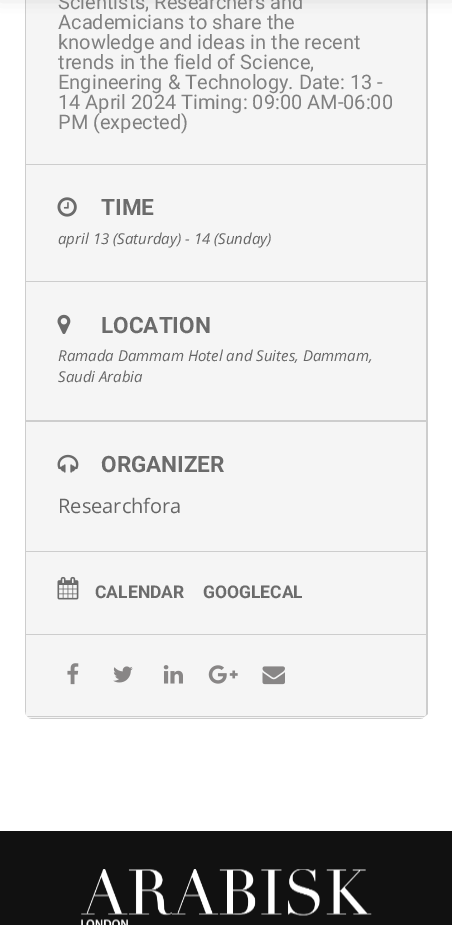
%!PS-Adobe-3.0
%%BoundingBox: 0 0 452 925
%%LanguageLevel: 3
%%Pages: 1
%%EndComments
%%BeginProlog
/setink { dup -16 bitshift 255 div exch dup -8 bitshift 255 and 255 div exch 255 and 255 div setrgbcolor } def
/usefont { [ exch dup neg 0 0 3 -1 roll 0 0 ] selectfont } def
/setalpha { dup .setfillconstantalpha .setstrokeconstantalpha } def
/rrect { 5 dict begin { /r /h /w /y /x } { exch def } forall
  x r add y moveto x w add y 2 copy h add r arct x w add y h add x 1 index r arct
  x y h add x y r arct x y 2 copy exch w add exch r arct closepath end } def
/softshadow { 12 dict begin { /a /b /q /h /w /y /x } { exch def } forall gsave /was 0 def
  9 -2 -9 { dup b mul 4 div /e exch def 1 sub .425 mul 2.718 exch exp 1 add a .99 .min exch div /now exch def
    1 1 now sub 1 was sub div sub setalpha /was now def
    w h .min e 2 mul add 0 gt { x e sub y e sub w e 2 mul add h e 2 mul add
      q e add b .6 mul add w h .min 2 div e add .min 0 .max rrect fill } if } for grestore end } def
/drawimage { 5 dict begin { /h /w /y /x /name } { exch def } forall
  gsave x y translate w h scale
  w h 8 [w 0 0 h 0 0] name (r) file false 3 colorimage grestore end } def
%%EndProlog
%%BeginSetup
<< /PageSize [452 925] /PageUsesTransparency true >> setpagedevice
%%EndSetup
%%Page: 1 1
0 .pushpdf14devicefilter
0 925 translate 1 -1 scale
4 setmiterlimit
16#FFFFFF setink
0 0 452 925 rectfill
16#CDCDCD setink
424 -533 moveto 425 -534 lineto 428 -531 lineto 428 714 lineto 424 717 lineto 421 719 lineto 424 718 426 714 426 711 curveto 426 -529 lineto 426 -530 425 -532 424 -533 curveto closepath fill
16#F5F5F5 setink
25 -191 moveto 25 711 lineto 25 715 28 719 32 719 curveto 420 719 lineto 423 719 425 716 426 713 curveto 426 -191 lineto closepath fill
16#CDCDCD setink
25 -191 moveto 25 711 lineto 26 715 lineto 26 -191 lineto closepath fill
16#000000 setink
0 -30 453 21 0 10 0.3 softshadow
16#CDCDCD setink
423 718 moveto 420 719 lineto 32 719 lineto 29 718 lineto closepath fill
26 164 400 1 rectfill
/Roboto-Regular 20 usefont
16#808080 setink
[
    [(Scientists, Researchers and) 58 9]
    [(Academicians to share the) 58 29]
    [(knowledge and ideas in the recent) 58 49]
    [(trends in the field of Science,) 58 69]
    [(Engineering & Technology. Date: 13 -) 58 89]
    [(14 April 2024 Timing: 09:00 AM-06:00) 58 109]
    [(PM \(expected\)) 58 129]
] { aload pop moveto show } forall
16#CDCDCD setink
26 420 400 2 rectfill
26 281 400 1 rectfill
(img1.raw) 57 197 20 20 drawimage
/Roboto-Bold 22.5 usefont
16#6B6B6B setink
101 215 moveto (TIME) show
/OpenSans-Italic 15 usefont
16#656565 setink
58 244 moveto (april 13 \(Saturday\) - 14 \(Sunday\)) show
(img2.raw) 57 314 14 20 drawimage
/Roboto-Bold 22.5 usefont
16#6B6B6B setink
101 333 moveto (LOCATION) show
/OpenSans-Italic 15 usefont
16#656565 setink
58 361 moveto (Ramada Dammam Hotel and Suites, Dammam,) show
58 382 moveto (Saudi Arabia) show
16#CDCDCD setink
26 551 400 1 rectfill
(img3.raw) 57 454 22 19 drawimage
/Roboto-Bold 22.5 usefont
16#6B6B6B setink
101 472 moveto (ORGANIZER) show
/OpenSans-Regular 20 usefont
16#656565 setink
58 513 moveto (Researchfora) show
16#CDCDCD setink
26 634 400 1 rectfill
(img4.raw) 57 576 22 24 drawimage
/Roboto-Bold 17.5 usefont
16#6B6B6B setink
95 598 moveto (CALENDAR) show
203 598 moveto (GOOGLECAL) show
16#F5F5F5 setink
26 635 moveto 426 635 lineto 426 713 lineto 426 715 424 717 423 718 curveto 29 718 lineto 26 715 lineto closepath fill
16#CDCDCD setink
28 717 moveto 27 716 lineto 425 716 lineto 424 717 lineto closepath fill
(img5.raw) 67 663 12 22 drawimage
(img6.raw) 113 666 20 17 drawimage
(img7.raw) 163 665 20 19 drawimage
(img8.raw) 208 665 30 19 drawimage
(img9.raw) 262 666 23 19 drawimage
16#111111 setink
0 831 452 94 rectfill
(img10.raw) 81 869 291 56 drawimage
.poppdf14devicefilter showpage
%%EOF
